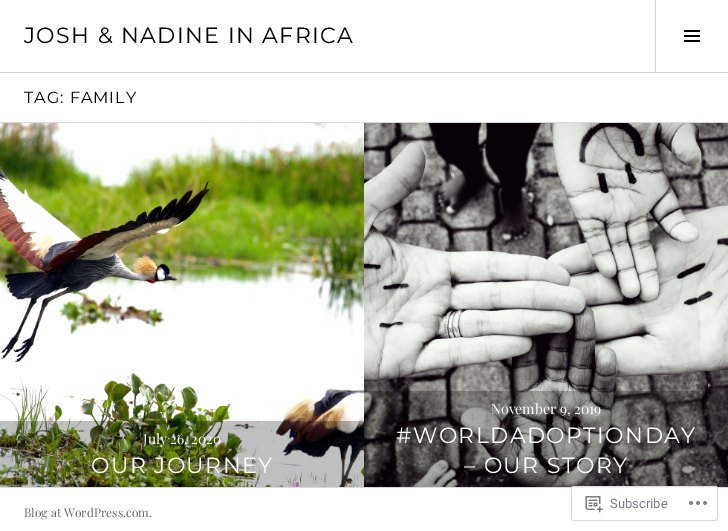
%!PS-Adobe-3.0
%%BoundingBox: 0 0 728 531
%%LanguageLevel: 3
%%Pages: 1
%%EndComments
%%BeginProlog
/setink { dup -16 bitshift 255 div exch dup -8 bitshift 255 and 255 div exch 255 and 255 div setrgbcolor } def
/usefont { [ exch dup neg 0 0 3 -1 roll 0 0 ] selectfont } def
/setalpha { dup .setfillconstantalpha .setstrokeconstantalpha } def
/rrect { 5 dict begin { /r /h /w /y /x } { exch def } forall
  x r add y moveto x w add y 2 copy h add r arct x w add y h add x 1 index r arct
  x y h add x y r arct x y 2 copy exch w add exch r arct closepath end } def
/drawimage { 5 dict begin { /h /w /y /x /name } { exch def } forall
  gsave x y translate w h scale
  w h 8 [w 0 0 h 0 0] name (r) file false 3 colorimage grestore end } def
%%EndProlog
%%BeginSetup
<< /PageSize [728 531] /PageUsesTransparency true >> setpagedevice
%%EndSetup
%%Page: 1 1
0 .pushpdf14devicefilter
0 531 translate 1 -1 scale
4 setmiterlimit
16#FFFFFF setink
0 0 728 531 rectfill
16#D9D9D9 setink
0 72 728 1 rectfill
/Montserrat-Regular 22 usefont
16#000000 setink
24 43 moveto 1.4 0 (JOSH & NADINE IN AFRICA) ashow
16#D9D9D9 setink
655 0 1 72 rectfill
(img1.raw) 684 30 16 12 drawimage
0 122 728 1 rectfill
/Montserrat-Regular 16 usefont
16#000000 setink
24 103 moveto 1 0 (TAG: FAMILY) ashow
(img2.raw) 0 123 364 364 drawimage
0.25 setalpha
0 421 364 66 rectfill
/PlayfairDisplay-Regular 14 usefont
1 setalpha
16#FFFFFF setink
143 444 moveto (July 26, 2020) show
/Montserrat-Regular 22 usefont
91 473 moveto 1.4 0 (OUR JOURNEY) ashow
(img3.raw) 364 123 364 364 drawimage
0.25 setalpha
16#000000 setink
364 391 364 96 rectfill
/PlayfairDisplay-Regular 14 usefont
1 setalpha
16#FFFFFF setink
491 414 moveto (November 9, 2019) show
/Montserrat-Regular 22 usefont
396 443 moveto 1.4 0 (#WORLDADOPTIONDAY) ashow
464 473 moveto 1.4 0 (– OUR STORY) ashow
16#D9D9D9 setink
0 487 728 1 rectfill
/PlayfairDisplay-Regular 12 usefont
16#666666 setink
24 517 moveto (Blog at WordPress.com.) show
0.98 setalpha
16#FFFFFF setink
571 486 147 35 3 rrect fill
16#DCDCDE setink
571.5 486.5 146 34 2.5 rrect stroke
1 setalpha
(img4.raw) 585 496 18 17 drawimage
/Roboto-Regular 13 usefont
16#7B7F85 setink
610 508 moveto (Subscribe) show
(img5.raw) 689 501 18 4 drawimage
.poppdf14devicefilter showpage
%%EOF
